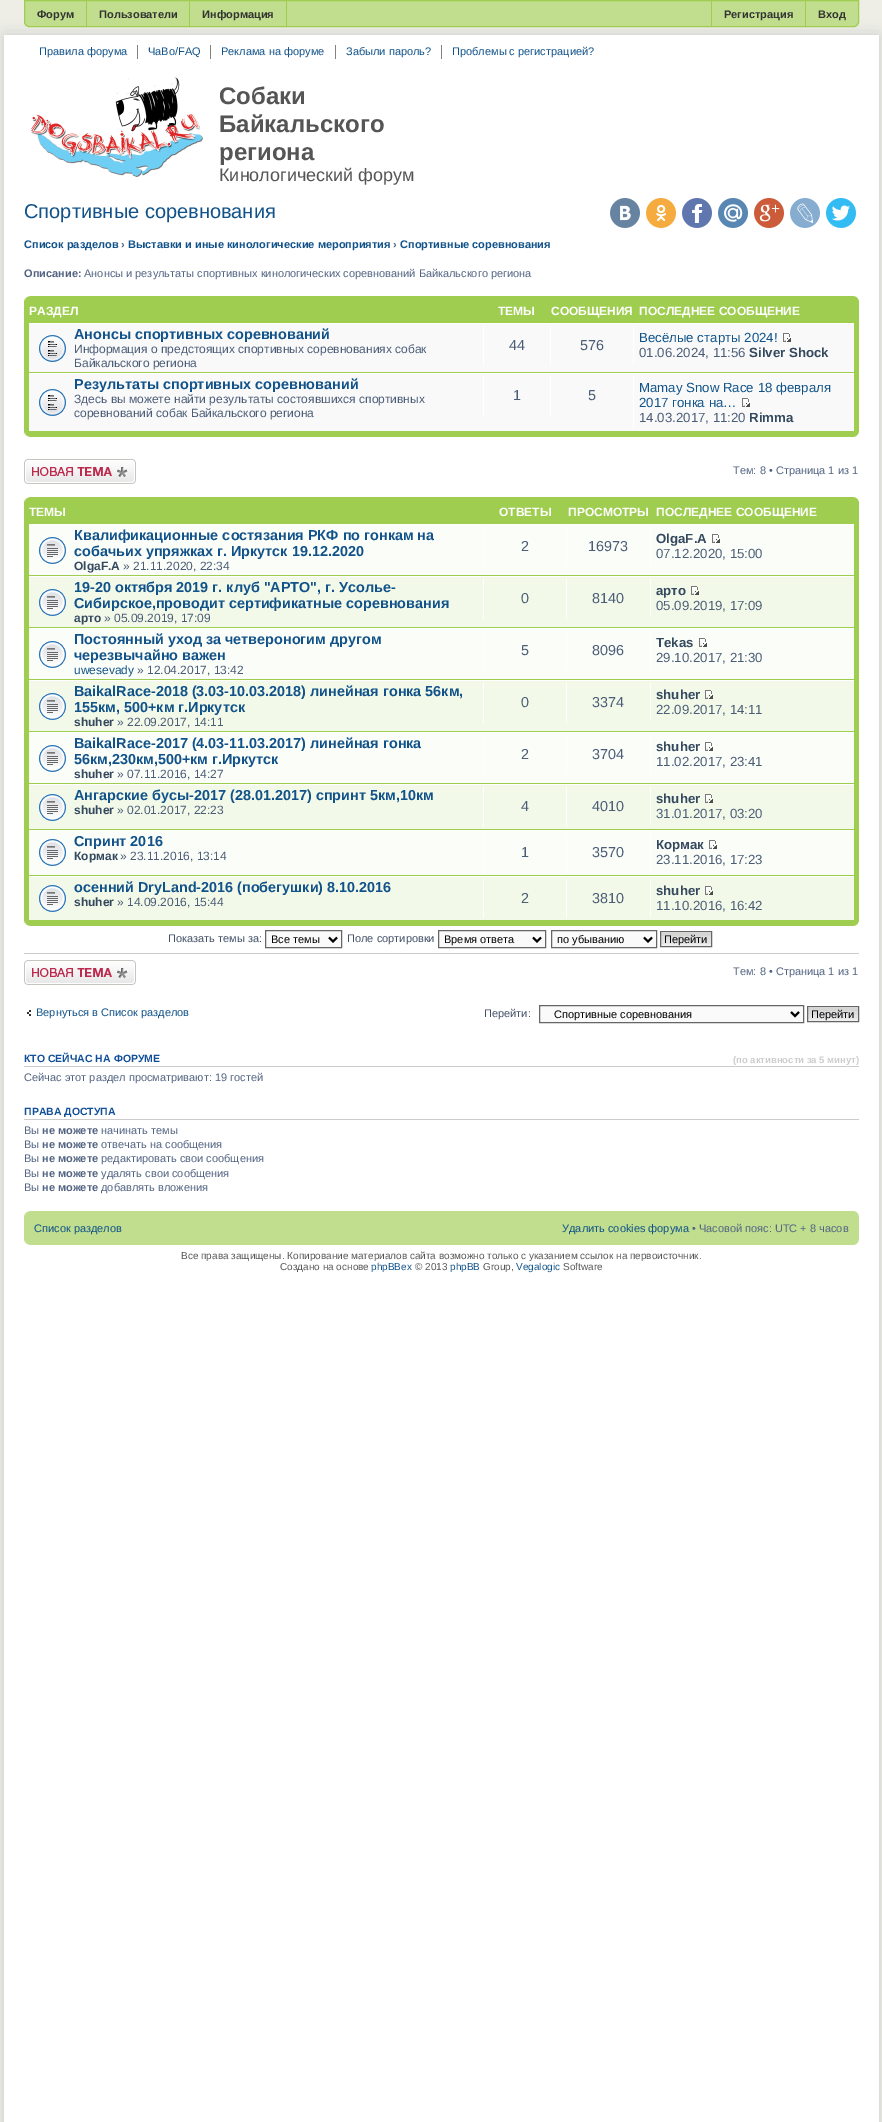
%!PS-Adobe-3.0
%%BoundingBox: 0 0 882 2122
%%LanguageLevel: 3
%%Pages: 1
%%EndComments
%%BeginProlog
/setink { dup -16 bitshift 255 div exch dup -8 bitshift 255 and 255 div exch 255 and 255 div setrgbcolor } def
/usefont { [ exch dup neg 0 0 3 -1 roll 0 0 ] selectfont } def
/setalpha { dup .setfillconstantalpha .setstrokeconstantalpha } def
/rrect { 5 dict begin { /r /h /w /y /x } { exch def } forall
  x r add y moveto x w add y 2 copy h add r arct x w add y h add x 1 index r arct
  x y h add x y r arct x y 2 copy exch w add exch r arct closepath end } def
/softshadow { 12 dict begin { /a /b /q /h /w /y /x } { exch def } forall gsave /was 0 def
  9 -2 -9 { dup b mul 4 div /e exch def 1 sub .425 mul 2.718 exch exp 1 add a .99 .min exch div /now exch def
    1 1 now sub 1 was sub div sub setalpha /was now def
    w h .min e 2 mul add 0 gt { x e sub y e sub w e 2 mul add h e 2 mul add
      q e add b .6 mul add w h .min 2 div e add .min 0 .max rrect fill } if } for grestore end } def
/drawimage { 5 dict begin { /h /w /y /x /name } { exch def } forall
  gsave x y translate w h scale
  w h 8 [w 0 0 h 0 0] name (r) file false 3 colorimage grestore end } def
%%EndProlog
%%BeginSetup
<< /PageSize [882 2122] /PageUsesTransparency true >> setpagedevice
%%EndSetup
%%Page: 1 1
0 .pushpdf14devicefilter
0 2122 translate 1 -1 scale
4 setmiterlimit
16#EEEEE7 setink
0 0 882 2122 rectfill
16#CCCCCC setink
4 35 875 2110 0 7.5 1 softshadow
16#FFFFFF setink
4 35 875 2087 rectfill
16#C0DE8D setink
24.5 0.5 moveto 858.5 0.5 lineto 858.5 22 lineto 858.5 24.5 856.5 26.5 854 26.5 curveto 29 26.5 lineto 26.5 26.5 24.5 24.5 24.5 22 curveto closepath gsave fill grestore
16#9ECD50 setink
stroke
86 1 1 25 rectfill
/LiberationSans-Bold 11 usefont
16#333333 setink
37 18 moveto (Форум) show
16#9ECD50 setink
189 1 1 25 rectfill
16#333333 setink
99 18 moveto (Пользователи) show
16#9ECD50 setink
286 1 1 25 rectfill
16#333333 setink
202 18 moveto (Информация) show
16#9ECD50 setink
711 1 1 25 rectfill
805 1 1 25 rectfill
16#333333 setink
724 18 moveto (Регистрация) show
818 18 moveto (Вход) show
16#828282 setink
137 45 1 14 rectfill
/LiberationSans-Regular 11 usefont
16#105289 setink
39 55 moveto (Правила форума) show
16#828282 setink
210 45 1 14 rectfill
16#105289 setink
148 55 moveto (ЧаВо/FAQ) show
16#828282 setink
335 45 1 14 rectfill
16#105289 setink
221 55 moveto (Реклама на форуме) show
16#828282 setink
441 45 1 14 rectfill
16#105289 setink
346 55 moveto (Забыли пароль?) show
452 55 moveto (Проблемы с регистрацией?) show
(img1.raw) 30 77 173 100 drawimage
/LiberationSans-Bold 24 usefont
16#555555 setink
[
    [(Собаки) 219 104]
    [(Байкальского) 219 132]
    [(региона) 219 160]
] { aload pop moveto show } forall
/LiberationSans-Regular 18 usefont
219 181 moveto (Кинологический форум) show
/LiberationSans-Regular 20 usefont
16#105289 setink
24 218 moveto (Спортивные соревнования) show
(img2.raw) 610 198 30 30 drawimage
(img3.raw) 646 198 30 30 drawimage
(img4.raw) 682 198 30 30 drawimage
(img5.raw) 718 198 30 30 drawimage
(img6.raw) 754 198 30 30 drawimage
(img7.raw) 790 198 30 30 drawimage
(img8.raw) 826 198 30 30 drawimage
/LiberationSans-Bold 11 usefont
24 248 moveto (Список разделов) show
16#536482 setink
121 248 moveto (›) show
16#105289 setink
128 248 moveto (Выставки и иные кинологические мероприятия) show
16#536482 setink
393 248 moveto (›) show
16#105289 setink
400 248 moveto (Спортивные соревнования) show
16#536482 setink
24 277 moveto (Описание:) show
/LiberationSans-Regular 11 usefont
84 277 moveto (Анонсы и результаты спортивных кинологических соревнований Байкальского региона) show
16#9ECD50 setink
24 296 835 141 rectfill
(img9.raw) 24 296 7 5 drawimage
(img10.raw) 853 296 6 5 drawimage
/LiberationSans-Bold 12 usefont
16#FFFFFF setink
[
    [(РАЗДЕЛ) 29 315]
    [(ТЕМЫ) 498 315]
    [(СООБЩЕНИЯ) 551 315]
    [(ПОСЛЕДНЕЕ СООБЩЕНИЕ) 639 315]
] { aload pop moveto show } forall
[
    [29 324 825 107 16#F9F9F9]
    [29 323 825 1 16#FFFFFF]
    [29 372 825 1 16#9ECD50]
] { aload pop setink rectfill } forall
(img11.raw) 39 335 27 27 drawimage
/LiberationSans-Bold 14.4 usefont
16#105289 setink
74 339 moveto (Анонсы спортивных соревнований) show
/LiberationSans-Regular 12 usefont
16#4C5D77 setink
74 353 moveto (Информация о предстоящих спортивных соревнованиях собак) show
74 367 moveto (Байкальского региона) show
16#FFFFFF setink
483 326 1 40 rectfill
/LiberationSans-Regular 14.4 usefont
16#4C5D77 setink
509 350 moveto (44) show
16#FFFFFF setink
550 326 1 40 rectfill
16#4C5D77 setink
580 350 moveto (576) show
16#FFFFFF setink
633 326 1 38 rectfill
/LiberationSans-Regular 13.25 usefont
16#105289 setink
639 342 moveto (Весёлые старты 2024!) show
(img12.raw) 783 333 8 9 drawimage
16#4C5D77 setink
639 357 moveto (01.06.2024, 11:56) show
/LiberationSans-Bold 13.25 usefont
16#34495E setink
749 357 moveto (Silver Shock) show
16#FFFFFF setink
29 373 825 1 rectfill
(img11.raw) 39 389 27 27 drawimage
/LiberationSans-Bold 14.4 usefont
16#105289 setink
74 389 moveto (Результаты спортивных соревнований) show
/LiberationSans-Regular 12 usefont
16#4C5D77 setink
74 403 moveto (Здесь вы можете найти результаты состоявшихся спортивных) show
74 417 moveto (соревнований собак Байкальского региона) show
16#FFFFFF setink
483 376 1 40 rectfill
/LiberationSans-Regular 14.4 usefont
16#4C5D77 setink
513 400 moveto (1) show
16#FFFFFF setink
550 376 1 40 rectfill
16#4C5D77 setink
588 400 moveto (5) show
16#FFFFFF setink
633 376 1 53 rectfill
/LiberationSans-Regular 13.25 usefont
16#105289 setink
639 392 moveto (Mamay Snow Race 18 февраля) show
639 407 moveto (2017 гонка на…) show
(img12.raw) 742 398 8 9 drawimage
16#4C5D77 setink
639 422 moveto (14.03.2017, 11:20) show
/LiberationSans-Bold 13.25 usefont
16#34495E setink
749 422 moveto (Rimma) show
(img13.raw) 24 432 6 5 drawimage
(img14.raw) 854 432 5 5 drawimage
(img15.raw) 24 459 112 25 drawimage
/LiberationSans-Regular 11 usefont
16#536482 setink
733 474 moveto (Тем: 8 • Страница 1 из 1) show
16#9ECD50 setink
24 497 835 429 rectfill
(img9.raw) 24 497 7 5 drawimage
(img10.raw) 853 497 6 5 drawimage
/LiberationSans-Bold 12 usefont
16#FFFFFF setink
[
    [(ТЕМЫ) 29 516]
    [(ОТВЕТЫ) 499 516]
    [(ПРОСМОТРЫ) 568 516]
    [(ПОСЛЕДНЕЕ СООБЩЕНИЕ) 656 516]
] { aload pop moveto show } forall
16#FBFDF8 setink
29 525 825 50 rectfill
16#FFFFFF setink
29 524 825 1 rectfill
(img16.raw) 39 537 27 27 drawimage
/LiberationSans-Bold 14.4 usefont
16#105289 setink
74 540 moveto (Квалификационные состязания РКФ по гонкам на) show
74 556 moveto (собачьих упряжках г. Иркутск 19.12.2020) show
/LiberationSans-Bold 12 usefont
16#34495E setink
74 570 moveto (OlgaF.A) show
/LiberationSans-Regular 12 usefont
16#4C5D77 setink
123 570 moveto (» 21.11.2020, 22:34) show
16#FFFFFF setink
483 527 1 40 rectfill
/LiberationSans-Regular 14.4 usefont
16#4C5D77 setink
521 551 moveto (2) show
16#FFFFFF setink
566 527 1 40 rectfill
16#4C5D77 setink
588 551 moveto (16973) show
16#FFFFFF setink
650 527 1 38 rectfill
/LiberationSans-Bold 13.25 usefont
16#34495E setink
656 543 moveto (OlgaF.A) show
(img17.raw) 712 534 8 9 drawimage
/LiberationSans-Regular 13.25 usefont
16#4C5D77 setink
656 558 moveto (07.12.2020, 15:00) show
16#F3F9E9 setink
29 577 825 50 rectfill
16#FFFFFF setink
29 576 825 1 rectfill
(img18.raw) 39 589 27 27 drawimage
/LiberationSans-Bold 14.4 usefont
16#105289 setink
74 592 moveto (19-20 октября 2019 г. клуб "АРТО", г. Усолье-) show
74 608 moveto (Сибирское,проводит сертификатные соревнования) show
/LiberationSans-Bold 12 usefont
16#34495E setink
74 622 moveto (арто) show
/LiberationSans-Regular 12 usefont
16#4C5D77 setink
104 622 moveto (» 05.09.2019, 17:09) show
16#FFFFFF setink
483 579 1 40 rectfill
/LiberationSans-Regular 14.4 usefont
16#4C5D77 setink
521 603 moveto (0) show
16#FFFFFF setink
566 579 1 40 rectfill
16#4C5D77 setink
592 603 moveto (8140) show
16#FFFFFF setink
650 579 1 38 rectfill
/LiberationSans-Bold 13.25 usefont
16#34495E setink
656 595 moveto (арто) show
(img19.raw) 691 586 8 9 drawimage
/LiberationSans-Regular 13.25 usefont
16#4C5D77 setink
656 610 moveto (05.09.2019, 17:09) show
16#FBFDF8 setink
29 629 825 50 rectfill
16#FFFFFF setink
29 628 825 1 rectfill
(img16.raw) 39 641 27 27 drawimage
/LiberationSans-Bold 14.4 usefont
16#105289 setink
74 644 moveto (Постоянный уход за четвероногим другом) show
74 660 moveto (черезвычайно важен) show
/LiberationSans-Regular 12 usefont
74 674 moveto (uwesevady) show
16#4C5D77 setink
137 674 moveto (» 12.04.2017, 13:42) show
16#FFFFFF setink
483 631 1 40 rectfill
/LiberationSans-Regular 14.4 usefont
16#4C5D77 setink
521 655 moveto (5) show
16#FFFFFF setink
566 631 1 40 rectfill
16#4C5D77 setink
592 655 moveto (8096) show
16#FFFFFF setink
650 631 1 38 rectfill
/LiberationSans-Bold 13.25 usefont
16#34495E setink
656 647 moveto (Tekas) show
(img17.raw) 699 638 8 9 drawimage
/LiberationSans-Regular 13.25 usefont
16#4C5D77 setink
656 662 moveto (29.10.2017, 21:30) show
16#F3F9E9 setink
29 681 825 50 rectfill
16#FFFFFF setink
29 680 825 1 rectfill
(img18.raw) 39 693 27 27 drawimage
/LiberationSans-Bold 14.4 usefont
16#105289 setink
74 696 moveto (BaikalRace-2018 \(3.03-10.03.2018\) линейная гонка 56км,) show
74 712 moveto (155км, 500+км г.Иркутск) show
/LiberationSans-Bold 12 usefont
16#34495E setink
74 726 moveto (shuher) show
/LiberationSans-Regular 12 usefont
16#4C5D77 setink
117 726 moveto (» 22.09.2017, 14:11) show
16#FFFFFF setink
483 683 1 40 rectfill
/LiberationSans-Regular 14.4 usefont
16#4C5D77 setink
521 707 moveto (0) show
16#FFFFFF setink
566 683 1 40 rectfill
16#4C5D77 setink
592 707 moveto (3374) show
16#FFFFFF setink
650 683 1 38 rectfill
/LiberationSans-Bold 13.25 usefont
16#34495E setink
656 699 moveto (shuher) show
(img19.raw) 705 690 8 9 drawimage
/LiberationSans-Regular 13.25 usefont
16#4C5D77 setink
656 714 moveto (22.09.2017, 14:11) show
16#FBFDF8 setink
29 733 825 50 rectfill
16#FFFFFF setink
29 732 825 1 rectfill
(img16.raw) 39 745 27 27 drawimage
/LiberationSans-Bold 14.4 usefont
16#105289 setink
74 748 moveto (BaikalRace-2017 \(4.03-11.03.2017\) линейная гонка) show
74 764 moveto (56км,230км,500+км г.Иркутск) show
/LiberationSans-Bold 12 usefont
16#34495E setink
74 778 moveto (shuher) show
/LiberationSans-Regular 12 usefont
16#4C5D77 setink
117 778 moveto (» 07.11.2016, 14:27) show
16#FFFFFF setink
483 735 1 40 rectfill
/LiberationSans-Regular 14.4 usefont
16#4C5D77 setink
521 759 moveto (2) show
16#FFFFFF setink
566 735 1 40 rectfill
16#4C5D77 setink
592 759 moveto (3704) show
16#FFFFFF setink
650 735 1 38 rectfill
/LiberationSans-Bold 13.25 usefont
16#34495E setink
656 751 moveto (shuher) show
(img17.raw) 705 742 8 9 drawimage
/LiberationSans-Regular 13.25 usefont
16#4C5D77 setink
656 766 moveto (11.02.2017, 23:41) show
16#F3F9E9 setink
29 785 825 44 rectfill
16#FFFFFF setink
29 784 825 1 rectfill
(img18.raw) 39 794 27 27 drawimage
/LiberationSans-Bold 14.4 usefont
16#105289 setink
74 800 moveto (Ангарские бусы-2017 \(28.01.2017\) спринт 5км,10км) show
/LiberationSans-Bold 12 usefont
16#34495E setink
74 814 moveto (shuher) show
/LiberationSans-Regular 12 usefont
16#4C5D77 setink
117 814 moveto (» 02.01.2017, 22:23) show
16#FFFFFF setink
483 787 1 40 rectfill
/LiberationSans-Regular 14.4 usefont
16#4C5D77 setink
521 811 moveto (4) show
16#FFFFFF setink
566 787 1 40 rectfill
16#4C5D77 setink
592 811 moveto (4010) show
16#FFFFFF setink
650 787 1 38 rectfill
/LiberationSans-Bold 13.25 usefont
16#34495E setink
656 803 moveto (shuher) show
(img19.raw) 705 794 8 9 drawimage
/LiberationSans-Regular 13.25 usefont
16#4C5D77 setink
656 818 moveto (31.01.2017, 03:20) show
16#FBFDF8 setink
29 831 825 44 rectfill
16#FFFFFF setink
29 830 825 1 rectfill
(img16.raw) 39 839 27 27 drawimage
/LiberationSans-Bold 14.4 usefont
16#105289 setink
74 846 moveto (Спринт 2016) show
/LiberationSans-Bold 12 usefont
16#34495E setink
74 860 moveto (Кормак) show
/LiberationSans-Regular 12 usefont
16#4C5D77 setink
120 860 moveto (» 23.11.2016, 13:14) show
16#FFFFFF setink
483 833 1 40 rectfill
/LiberationSans-Regular 14.4 usefont
16#4C5D77 setink
521 857 moveto (1) show
16#FFFFFF setink
566 833 1 40 rectfill
16#4C5D77 setink
592 857 moveto (3570) show
16#FFFFFF setink
650 833 1 38 rectfill
/LiberationSans-Bold 13.25 usefont
16#34495E setink
656 849 moveto (Кормак) show
(img17.raw) 709 840 8 9 drawimage
/LiberationSans-Regular 13.25 usefont
16#4C5D77 setink
656 864 moveto (23.11.2016, 17:23) show
16#F3F9E9 setink
29 877 825 43 rectfill
16#FFFFFF setink
29 876 825 1 rectfill
(img18.raw) 39 885 27 27 drawimage
/LiberationSans-Bold 14.4 usefont
16#105289 setink
74 892 moveto (осенний DryLand-2016 \(побегушки\) 8.10.2016) show
/LiberationSans-Bold 12 usefont
16#34495E setink
74 906 moveto (shuher) show
/LiberationSans-Regular 12 usefont
16#4C5D77 setink
117 906 moveto (» 14.09.2016, 15:44) show
16#FFFFFF setink
483 879 1 39 rectfill
/LiberationSans-Regular 14.4 usefont
16#4C5D77 setink
521 903 moveto (2) show
16#FFFFFF setink
566 879 1 39 rectfill
16#4C5D77 setink
592 903 moveto (3810) show
16#FFFFFF setink
650 879 1 38 rectfill
/LiberationSans-Bold 13.25 usefont
16#34495E setink
656 895 moveto (shuher) show
(img19.raw) 705 886 8 9 drawimage
/LiberationSans-Regular 13.25 usefont
16#4C5D77 setink
656 910 moveto (11.10.2016, 16:42) show
(img13.raw) 24 921 6 5 drawimage
(img14.raw) 854 921 5 5 drawimage
/LiberationSans-Regular 11 usefont
16#425067 setink
168 942 moveto (Показать темы за:) show
16#FAFAFA setink
265.5 930.5 moveto 341.5 930.5 lineto 341.5 947.5 lineto 265.5 947.5 lineto closepath gsave fill grestore
16#666666 setink
stroke
16#000000 setink
2 setlinewidth
329 937.5 moveto 333 941.5 lineto 337 937.5 lineto stroke
271 943 moveto (Все темы) show
16#425067 setink
347 942 moveto (Поле сортировки) show
16#FAFAFA setink
438.5 930.5 moveto 545.5 930.5 lineto 545.5 947.5 lineto 438.5 947.5 lineto closepath gsave fill grestore
16#666666 setink
1 setlinewidth
stroke
16#000000 setink
2 setlinewidth
533 937.5 moveto 537 941.5 lineto 541 937.5 lineto stroke
444 943 moveto (Время ответа) show
16#FAFAFA setink
551.5 930.5 moveto 656.5 930.5 lineto 656.5 947.5 lineto 551.5 947.5 lineto closepath gsave fill grestore
16#666666 setink
1 setlinewidth
stroke
16#000000 setink
2 setlinewidth
644 937.5 moveto 648 941.5 lineto 652 937.5 lineto stroke
557 943 moveto (по убыванию) show
(img20.raw) 661 932 50 14 drawimage
16#666666 setink
1 setlinewidth
660.5 931.5 51 15 rectstroke
16#000000 setink
664 943 moveto (Перейти) show
16#CCCCCC setink
24 953 835 1 rectfill
(img15.raw) 24 960 112 25 drawimage
16#536482 setink
733 975 moveto (Тем: 8 • Страница 1 из 1) show
(img21.raw) 27 1010 4 6 drawimage
16#105289 setink
36 1016 moveto (Вернуться в Список разделов) show
16#425067 setink
484 1017 moveto (Перейти:) show
16#FAFAFA setink
539.5 1005.5 moveto 803.5 1005.5 lineto 803.5 1022.5 lineto 539.5 1022.5 lineto closepath gsave fill grestore
16#666666 setink
stroke
16#000000 setink
2 setlinewidth
791 1012 moveto 795 1016 lineto 799 1012 lineto stroke
554 1018 moveto (Спортивные соревнования) show
(img20.raw) 808 1007 50 14 drawimage
16#666666 setink
1 setlinewidth
807.5 1006.5 51 15 rectstroke
16#000000 setink
811 1018 moveto (Перейти) show
16#CCCCCC setink
24 1066 835 1 rectfill
/LiberationSans-Bold 10.5 usefont
16#115098 setink
24 1062 moveto (КТО СЕЙЧАС НА ФОРУМЕ) show
/LiberationSans-Bold 9.5 usefont
16#CCCCCC setink
733 1063 moveto (\(по активности за 5 минут\)) show
/LiberationSans-Regular 11 usefont
16#536482 setink
24 1081 moveto (Сейчас этот раздел просматривают: 19 гостей) show
16#CCCCCC setink
24 1119 835 1 rectfill
/LiberationSans-Bold 10.5 usefont
16#115098 setink
24 1115 moveto (ПРАВА ДОСТУПА) show
/LiberationSans-Regular 11 usefont
16#536482 setink
24 1134 moveto (Вы) show
/LiberationSans-Bold 11 usefont
42 1134 moveto (не можете) show
/LiberationSans-Regular 11 usefont
101 1134 moveto (начинать темы) show
24 1148 moveto (Вы) show
/LiberationSans-Bold 11 usefont
42 1148 moveto (не можете) show
/LiberationSans-Regular 11 usefont
101 1148 moveto (отвечать на сообщения) show
24 1162 moveto (Вы) show
/LiberationSans-Bold 11 usefont
42 1162 moveto (не можете) show
/LiberationSans-Regular 11 usefont
101 1162 moveto (редактировать свои сообщения) show
24 1177 moveto (Вы) show
/LiberationSans-Bold 11 usefont
42 1177 moveto (не можете) show
/LiberationSans-Regular 11 usefont
101 1177 moveto (удалять свои сообщения) show
24 1191 moveto (Вы) show
/LiberationSans-Bold 11 usefont
42 1191 moveto (не можете) show
/LiberationSans-Regular 11 usefont
101 1191 moveto (добавлять вложения) show
16#C0DE8D setink
24 1211 835 34 rectfill
(img22.raw) 24 1211 6 5 drawimage
(img23.raw) 854 1211 5 5 drawimage
16#105289 setink
34 1232 moveto (Список разделов) show
562 1232 moveto (Удалить cookies форума) show
16#536482 setink
692 1232 moveto (• Часовой пояс: UTC + 8 часов) show
(img24.raw) 24 1240 6 5 drawimage
(img25.raw) 854 1240 5 5 drawimage
/LiberationSans-Regular 10 usefont
16#555555 setink
181 1259 moveto (Все права защищены. Копирование материалов сайта возможно только с указанием ссылок на первоисточник.) show
280 1270 moveto (Создано на основе) show
16#105289 setink
371 1270 moveto (phpBBex) show
16#555555 setink
415 1270 moveto (© 2013) show
16#105289 setink
450 1270 moveto (phpBB) show
16#555555 setink
483 1270 moveto (Group,) show
16#105289 setink
516 1270 moveto (Vegalogic) show
16#555555 setink
563 1270 moveto (Software) show
.poppdf14devicefilter showpage
%%EOF
